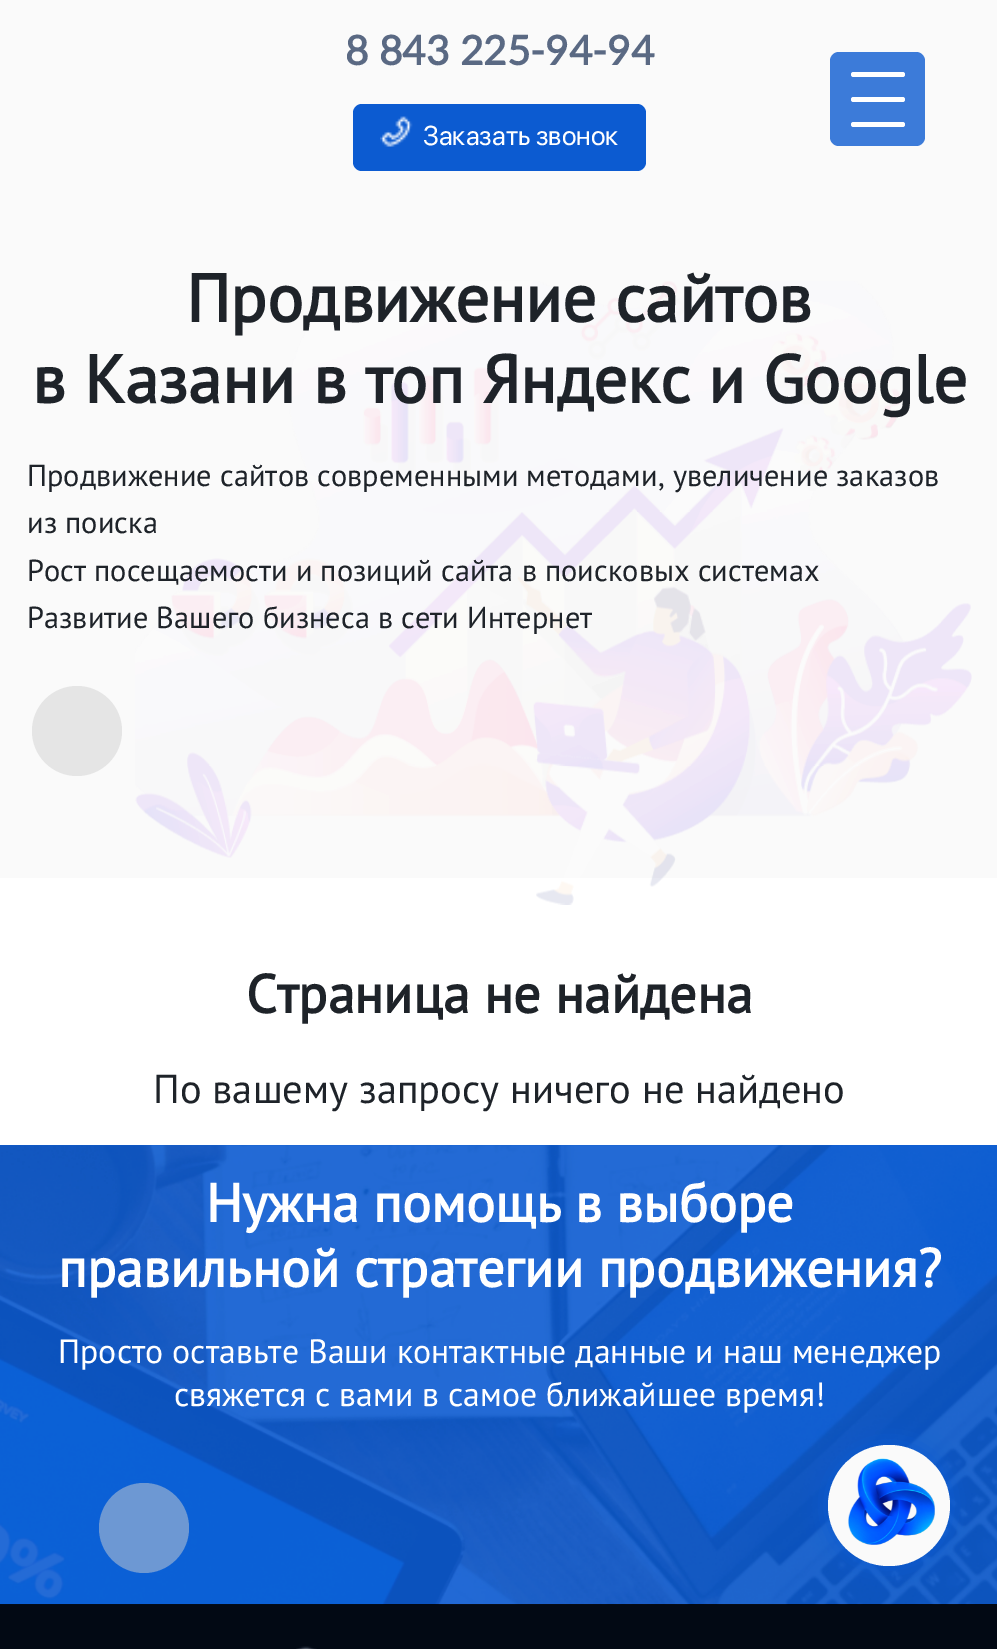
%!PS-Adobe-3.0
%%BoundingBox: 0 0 997 1649
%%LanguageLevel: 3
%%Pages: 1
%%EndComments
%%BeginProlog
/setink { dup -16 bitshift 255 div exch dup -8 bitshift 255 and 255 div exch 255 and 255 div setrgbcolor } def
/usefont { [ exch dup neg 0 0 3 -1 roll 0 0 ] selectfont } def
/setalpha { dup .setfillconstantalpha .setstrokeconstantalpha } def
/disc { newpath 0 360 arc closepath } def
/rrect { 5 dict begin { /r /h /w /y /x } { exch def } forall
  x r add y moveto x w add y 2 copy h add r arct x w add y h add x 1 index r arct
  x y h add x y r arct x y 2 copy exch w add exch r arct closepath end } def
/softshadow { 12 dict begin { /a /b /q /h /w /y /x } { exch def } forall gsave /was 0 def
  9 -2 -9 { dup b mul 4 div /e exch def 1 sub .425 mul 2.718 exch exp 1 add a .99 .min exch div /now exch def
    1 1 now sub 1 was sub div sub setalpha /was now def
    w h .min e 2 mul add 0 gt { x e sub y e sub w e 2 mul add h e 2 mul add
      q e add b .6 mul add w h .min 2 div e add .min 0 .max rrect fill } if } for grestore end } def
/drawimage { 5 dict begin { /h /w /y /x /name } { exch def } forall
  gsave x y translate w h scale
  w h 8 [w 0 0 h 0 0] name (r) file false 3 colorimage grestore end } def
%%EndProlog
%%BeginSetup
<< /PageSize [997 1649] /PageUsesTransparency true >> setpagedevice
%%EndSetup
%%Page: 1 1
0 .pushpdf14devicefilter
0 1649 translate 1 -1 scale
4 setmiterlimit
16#FFFFFF setink
0 0 997 1649 rectfill
16#FAFAFA setink
0 0 997 878 rectfill
/Lato-Bold 40.5 usefont
16#5A6983 setink
345 65 moveto (8 843 225-94-94) show
16#0C5BD1 setink
353 104 293 67 9 rrect fill
(img1.raw) 380 116 33 31 drawimage
/SFProDisplay-Regular 27 usefont
16#FFFFFF setink
423 145 moveto (Заказать звонок) show
16#3C7BD9 setink
830 52 95 94 9 rrect fill
16#FFFFFF setink
851 72 54 5 2.5 rrect fill
851 97 54 5 2.5 rrect fill
851 122 54 5 2.5 rrect fill
(img2.raw) 135 281 837 624 drawimage
/PTSans-Bold 67.5 usefont
16#1E2329 setink
186 322 moveto (Продвижение сайтов) show
32 403 moveto (в Казани в топ Яндекс и Google) show
/PTSans-Regular 30.4 usefont
[
    [(Продвижение сайтов современными методами, увеличение заказов) 27 486]
    [(из поиска) 27 533]
    [(Рост посещаемости и позиций сайта в поисковых системах) 27 581]
    [(Развитие Вашего бизнеса в сети Интернет) 27 628]
] { aload pop moveto show } forall
16#E5E5E5 setink
77 731 45 disc fill
/PTSans-Bold 54 usefont
16#1E2329 setink
246 1013 moveto (Страница не найдена) show
/PTSans-Regular 40.5 usefont
153 1103 moveto (По вашему запросу ничего не найдено) show
16#020914 setink
0 1604 997 45 rectfill
16#0C5BD1 setink
0 1145 997 459 rectfill
(img3.raw) 0 1145 997 460 drawimage
/PTSans-Bold 54 usefont
16#FFFFFF setink
206 1222 moveto (Нужна помощь в выборе) show
58 1287 moveto (правильной стратегии продвижения?) show
/PTSans-Regular 33.75 usefont
58 1363 moveto (Просто оставьте Ваши контактные данные и наш менеджер) show
174 1406 moveto (свяжется с вами в самое ближайшее время!) show
16#6D98D3 setink
144 1528 45 disc fill
(img4.raw) 296 1646 21 3 drawimage
16#0C5BD1 setink
826 1442 126 126 63 11 1 softshadow
16#FAFAFA setink
828 1445 122 121 60.5 rrect fill
(img5.raw) 848 1458 87 87 drawimage
.poppdf14devicefilter showpage
%%EOF
